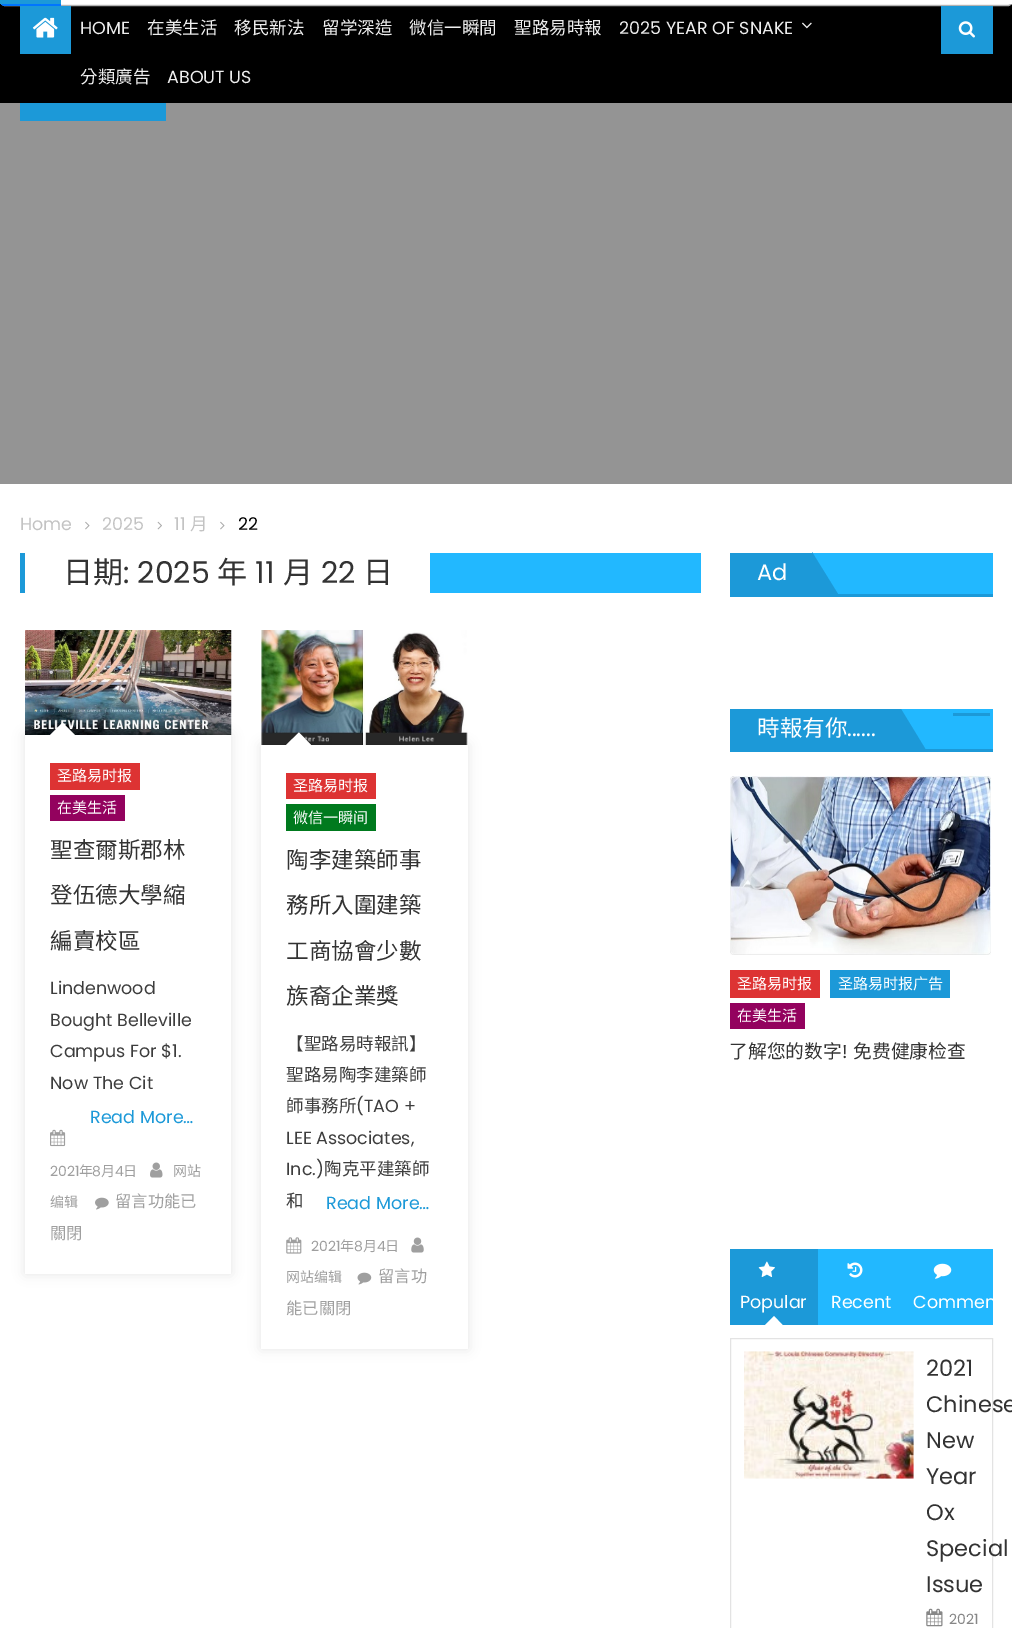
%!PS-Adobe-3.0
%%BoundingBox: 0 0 1012 1628
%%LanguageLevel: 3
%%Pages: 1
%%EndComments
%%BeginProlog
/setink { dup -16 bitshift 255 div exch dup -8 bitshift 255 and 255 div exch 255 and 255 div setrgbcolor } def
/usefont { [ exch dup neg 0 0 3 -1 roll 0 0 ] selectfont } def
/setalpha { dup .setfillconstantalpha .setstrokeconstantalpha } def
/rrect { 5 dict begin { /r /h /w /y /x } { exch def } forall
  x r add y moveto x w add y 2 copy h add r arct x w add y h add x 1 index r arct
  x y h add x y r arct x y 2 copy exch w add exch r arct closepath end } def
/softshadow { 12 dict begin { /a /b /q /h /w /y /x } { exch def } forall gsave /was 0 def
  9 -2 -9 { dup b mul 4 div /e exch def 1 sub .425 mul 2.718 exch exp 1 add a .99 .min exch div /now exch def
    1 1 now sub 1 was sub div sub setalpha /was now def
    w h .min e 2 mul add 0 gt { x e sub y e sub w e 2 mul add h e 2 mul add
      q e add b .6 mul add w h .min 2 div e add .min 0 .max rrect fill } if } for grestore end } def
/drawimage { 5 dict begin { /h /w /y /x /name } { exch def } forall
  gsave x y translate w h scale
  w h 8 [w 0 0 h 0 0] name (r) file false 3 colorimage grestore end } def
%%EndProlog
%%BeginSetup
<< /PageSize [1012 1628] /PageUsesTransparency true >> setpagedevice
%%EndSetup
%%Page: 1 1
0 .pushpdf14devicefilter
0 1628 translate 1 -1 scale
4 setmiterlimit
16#FFFFFF setink
0 0 1012 1628 rectfill
16#000000 setink
0 4 1012 99 rectfill
16#EFEFEF setink
0.5 -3.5 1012 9 4.5 rrect gsave fill grestore
16#B2B2B2 setink
stroke
16#0075FF setink
5 -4 moveto 61 -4 lineto 61 6 lineto 5 6 lineto 2 6 0 4 0 1 curveto 0 -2 2 -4 5 -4 curveto closepath fill
[
    [61 0 951 4 16#FFFFFF]
    [0 0 61 4 16#1C99D8]
    [20 6 51 48 16#1C99D8]
] { aload pop setink rectfill } forall
(img1.raw) 32 17 26 21 drawimage
/Poppins-Regular 17.5 usefont
16#EEEEEE setink
80 34 moveto (HOME) show
/NotoSansCJKTC-Regular 17.5 usefont
[
    [(在美生活) 147 34]
    [(移民新法) 234 34]
    [(留学深造) 322 34]
    [(微信一瞬間) 409 34]
    [(聖路易時報) 514 34]
] { aload pop moveto show } forall
/Poppins-Regular 17.5 usefont
619 34 moveto (2025 YEAR OF SNAKE) show
(img2.raw) 802 22 10 7 drawimage
/NotoSansCJKTC-Regular 17.5 usefont
80 83 moveto (分類廣告) show
/Poppins-Regular 17.5 usefont
167 83 moveto (ABOUT US) show
16#1C99D8 setink
941 6 52 48 rectfill
(img3.raw) 958 21 17 17 drawimage
16#949494 setink
0 103 1012 381 rectfill
16#1C99D8 setink
20 103 146 18 rectfill
16#C3C3C3 setink
20 530 moveto (Home) show
(img4.raw) 85 521 5 9 drawimage
102 530 moveto (2025) show
(img5.raw) 157 521 5 9 drawimage
174 530 moveto (11) show
/NotoSansCJKTC-Regular 17.5 usefont
190 530 moveto (月) show
(img4.raw) 220 521 5 9 drawimage
/Poppins-Regular 17.5 usefont
16#000000 setink
238 530 moveto (22) show
16#22B8FF setink
430 553 271 40 rectfill
16#1C99D8 setink
20 553 5 40 rectfill
/NotoSansCJKTC-Regular 30 usefont
16#333333 setink
63 583 moveto (日期) show
/Poppins-Regular 30 usefont
123 583 moveto (: 2025) show
/NotoSansCJKTC-Regular 30 usefont
217 583 moveto (年) show
/Poppins-Regular 30 usefont
255 583 moveto (11) show
/NotoSansCJKTC-Regular 30 usefont
283 583 moveto (月) show
/Poppins-Regular 30 usefont
321 583 moveto (22) show
/NotoSansCJKTC-Regular 30 usefont
363 583 moveto (日) show
(img6.raw) 25 630 207 105 drawimage
gsave
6 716 moveto 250 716 lineto 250 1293 lineto 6 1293 lineto closepath 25 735 moveto 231 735 lineto 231 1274 lineto 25 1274 lineto closepath eoclip newpath
16#000000 setink
25 735 206 539 0 6 0.1 softshadow
grestore
16#FFFFFF setink
75 735 moveto 50 735 lineto 62.5 722.5 lineto closepath fill
16#DD3333 setink
50 763 90 27 rectfill
/NotoSansCJKTC-Regular 15 usefont
16#FFFFFF setink
57 781 moveto (圣路易时报) show
16#93025E setink
50 795 75 26 rectfill
16#FFFFFF setink
57 813 moveto (在美生活) show
/NotoSansCJKTC-Regular 22.5 usefont
16#333333 setink
[
    [(聖查爾斯郡林) 50 858]
    [(登伍德大學縮) 50 903]
    [(編賣校區) 50 949]
] { aload pop moveto show } forall
/Poppins-Regular 17.5 usefont
16#3D3D3D setink
[
    [(Lindenwood) 50 994]
    [(Bought Belleville) 50 1026]
    [(Campus For $1.) 50 1057]
    [(Now The Cit) 50 1089]
] { aload pop moveto show } forall
16#1C99D8 setink
90 1123 moveto (Read More…) show
(img7.raw) 50 1129 16 18 drawimage
/Poppins-Regular 14 usefont
16#9F9F9F setink
50 1176 moveto (2021) show
/NotoSansCJKTC-Regular 14 usefont
79 1176 moveto (年) show
/Poppins-Regular 14 usefont
92 1176 moveto (8) show
/NotoSansCJKTC-Regular 14 usefont
101 1176 moveto (月) show
/Poppins-Regular 14 usefont
115 1176 moveto (4) show
/NotoSansCJKTC-Regular 14 usefont
123 1176 moveto (日) show
(img8.raw) 150 1162 13 16 drawimage
173 1176 moveto (网站) show
50 1207 moveto (编辑) show
(img9.raw) 95 1197 14 13 drawimage
/NotoSansCJKTC-Regular 16.25 usefont
115 1207 moveto (留言功能已) show
50 1239 moveto (關閉) show
(img10.raw) 261 630 207 115 drawimage
gsave
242 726 moveto 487 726 lineto 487 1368 lineto 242 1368 lineto closepath 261 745 moveto 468 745 lineto 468 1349 lineto 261 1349 lineto closepath eoclip newpath
16#000000 setink
261 745 207 604 0 6 0.1 softshadow
grestore
16#FFFFFF setink
311 745 moveto 286 745 lineto 299 732.5 lineto closepath fill
16#DD3333 setink
286 773 90 26 rectfill
/NotoSansCJKTC-Regular 15 usefont
16#FFFFFF setink
293 791 moveto (圣路易时报) show
16#007A1E setink
286 804 90 27 rectfill
16#FFFFFF setink
293 823 moveto (微信一瞬间) show
/NotoSansCJKTC-Regular 22.5 usefont
16#333333 setink
[
    [(陶李建築師事) 286 868]
    [(務所入圍建築) 286 913]
    [(工商協會少數) 286 959]
    [(族裔企業獎) 286 1004]
] { aload pop moveto show } forall
/NotoSansCJKTC-Regular 17.5 usefont
16#3D3D3D setink
[
    [(【聖路易時報訊】) 286 1050]
    [(聖路易陶李建築師) 286 1081]
    [(師事務所) 286 1112]
] { aload pop moveto show } forall
/Poppins-Regular 17.5 usefont
[
    [(\(TAO +) 356 1112]
    [(LEE Associates,) 286 1144]
    [(Inc.\)) 286 1175]
] { aload pop moveto show } forall
/NotoSansCJKTC-Regular 17.5 usefont
324 1175 moveto (陶克平建築師) show
286 1207 moveto (和) show
/Poppins-Regular 17.5 usefont
16#1C99D8 setink
326 1209 moveto (Read More…) show
(img11.raw) 286 1237 16 17 drawimage
/Poppins-Regular 14 usefont
16#9F9F9F setink
311 1251 moveto (2021) show
/NotoSansCJKTC-Regular 14 usefont
340 1251 moveto (年) show
/Poppins-Regular 14 usefont
354 1251 moveto (8) show
/NotoSansCJKTC-Regular 14 usefont
363 1251 moveto (月) show
/Poppins-Regular 14 usefont
377 1251 moveto (4) show
/NotoSansCJKTC-Regular 14 usefont
385 1251 moveto (日) show
(img12.raw) 411 1237 13 16 drawimage
286 1282 moveto (网站编辑) show
(img13.raw) 357 1272 15 13 drawimage
/NotoSansCJKTC-Regular 16.25 usefont
378 1282 moveto (留言功) show
286 1314 moveto (能已關閉) show
[
    [813 553 180 41 16#22B8FF]
    [730 594 263 3 16#1C99D8]
    [730 553 3 43 16#1C99D8]
    [733 553 80 41 16#1C99D8]
] { aload pop setink rectfill } forall
/Poppins-Regular 22.5 usefont
16#FFFFFF setink
757 580 moveto (Ad) show
16#1C99D8 setink
838 594 moveto 812 594 lineto 812 552 lineto closepath fill
[
    [901 709 92 40 16#22B8FF]
    [730 749 263 3 16#1C99D8]
    [730 709 3 42 16#1C99D8]
    [953 713 37 3 16#1C99D8]
    [733 709 168 40 16#1C99D8]
] { aload pop setink rectfill } forall
/NotoSansCJKTC-Regular 22.5 usefont
16#FFFFFF setink
757 736 moveto (時報有你) show
/Poppins-Regular 22.5 usefont
847 736 moveto (......) show
16#1C99D8 setink
926 750 moveto 901 750 lineto 901 709 lineto closepath fill
(img14.raw) 730 776 261 179 drawimage
16#DD3333 setink
730 970 90 28 rectfill
/NotoSansCJKTC-Regular 15 usefont
16#FFFFFF setink
737 989 moveto (圣路易时报) show
16#1C99D8 setink
830 970 120 28 rectfill
16#FFFFFF setink
838 989 moveto (圣路易时报广告) show
16#93025E setink
730 1003 75 26 rectfill
16#FFFFFF setink
737 1021 moveto (在美生活) show
/NotoSansCJKTC-Regular 18.75 usefont
16#333333 setink
729 1058 moveto (了解您的数字) show
/Poppins-Regular 18.75 usefont
842 1058 moveto (!) show
/NotoSansCJKTC-Regular 18.75 usefont
853 1058 moveto (免费健康检查) show
16#1C99D8 setink
730 1249 88 76 rectfill
(img15.raw) 758 1261 17 16 drawimage
/Poppins-Regular 17.5 usefont
16#FFFFFF setink
740 1308 moveto (Popular) show
782.5 1325 moveto 765 1325 lineto 774 1316 lineto closepath fill
16#22B8FF setink
818 1249 175 76 rectfill
(img16.raw) 847 1262 16 16 drawimage
16#FFFFFF setink
831 1308 moveto (Recent) show
(img17.raw) 933 1263 19 16 drawimage
gsave
905 1249 88 76 rectclip
913 1308 moveto (Commen) show
grestore
16#E3E3E3 setink
730.5 1338.5 262 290 rectstroke
(img18.raw) 744 1351 170 128 drawimage
/Poppins-Regular 22.5 usefont
16#333333 setink
[
    [(2021) 926 1376]
    [(Chinese) 926 1412]
    [(New) 926 1448]
    [(Year) 926 1484]
    [(Ox) 926 1520]
    [(Special) 926 1556]
    [(Issue) 926 1592]
] { aload pop moveto show } forall
(img19.raw) 926 1608 17 19 drawimage
/Poppins-Regular 14 usefont
16#878787 setink
949 1624 moveto (2021) show
.poppdf14devicefilter showpage
%%EOF
